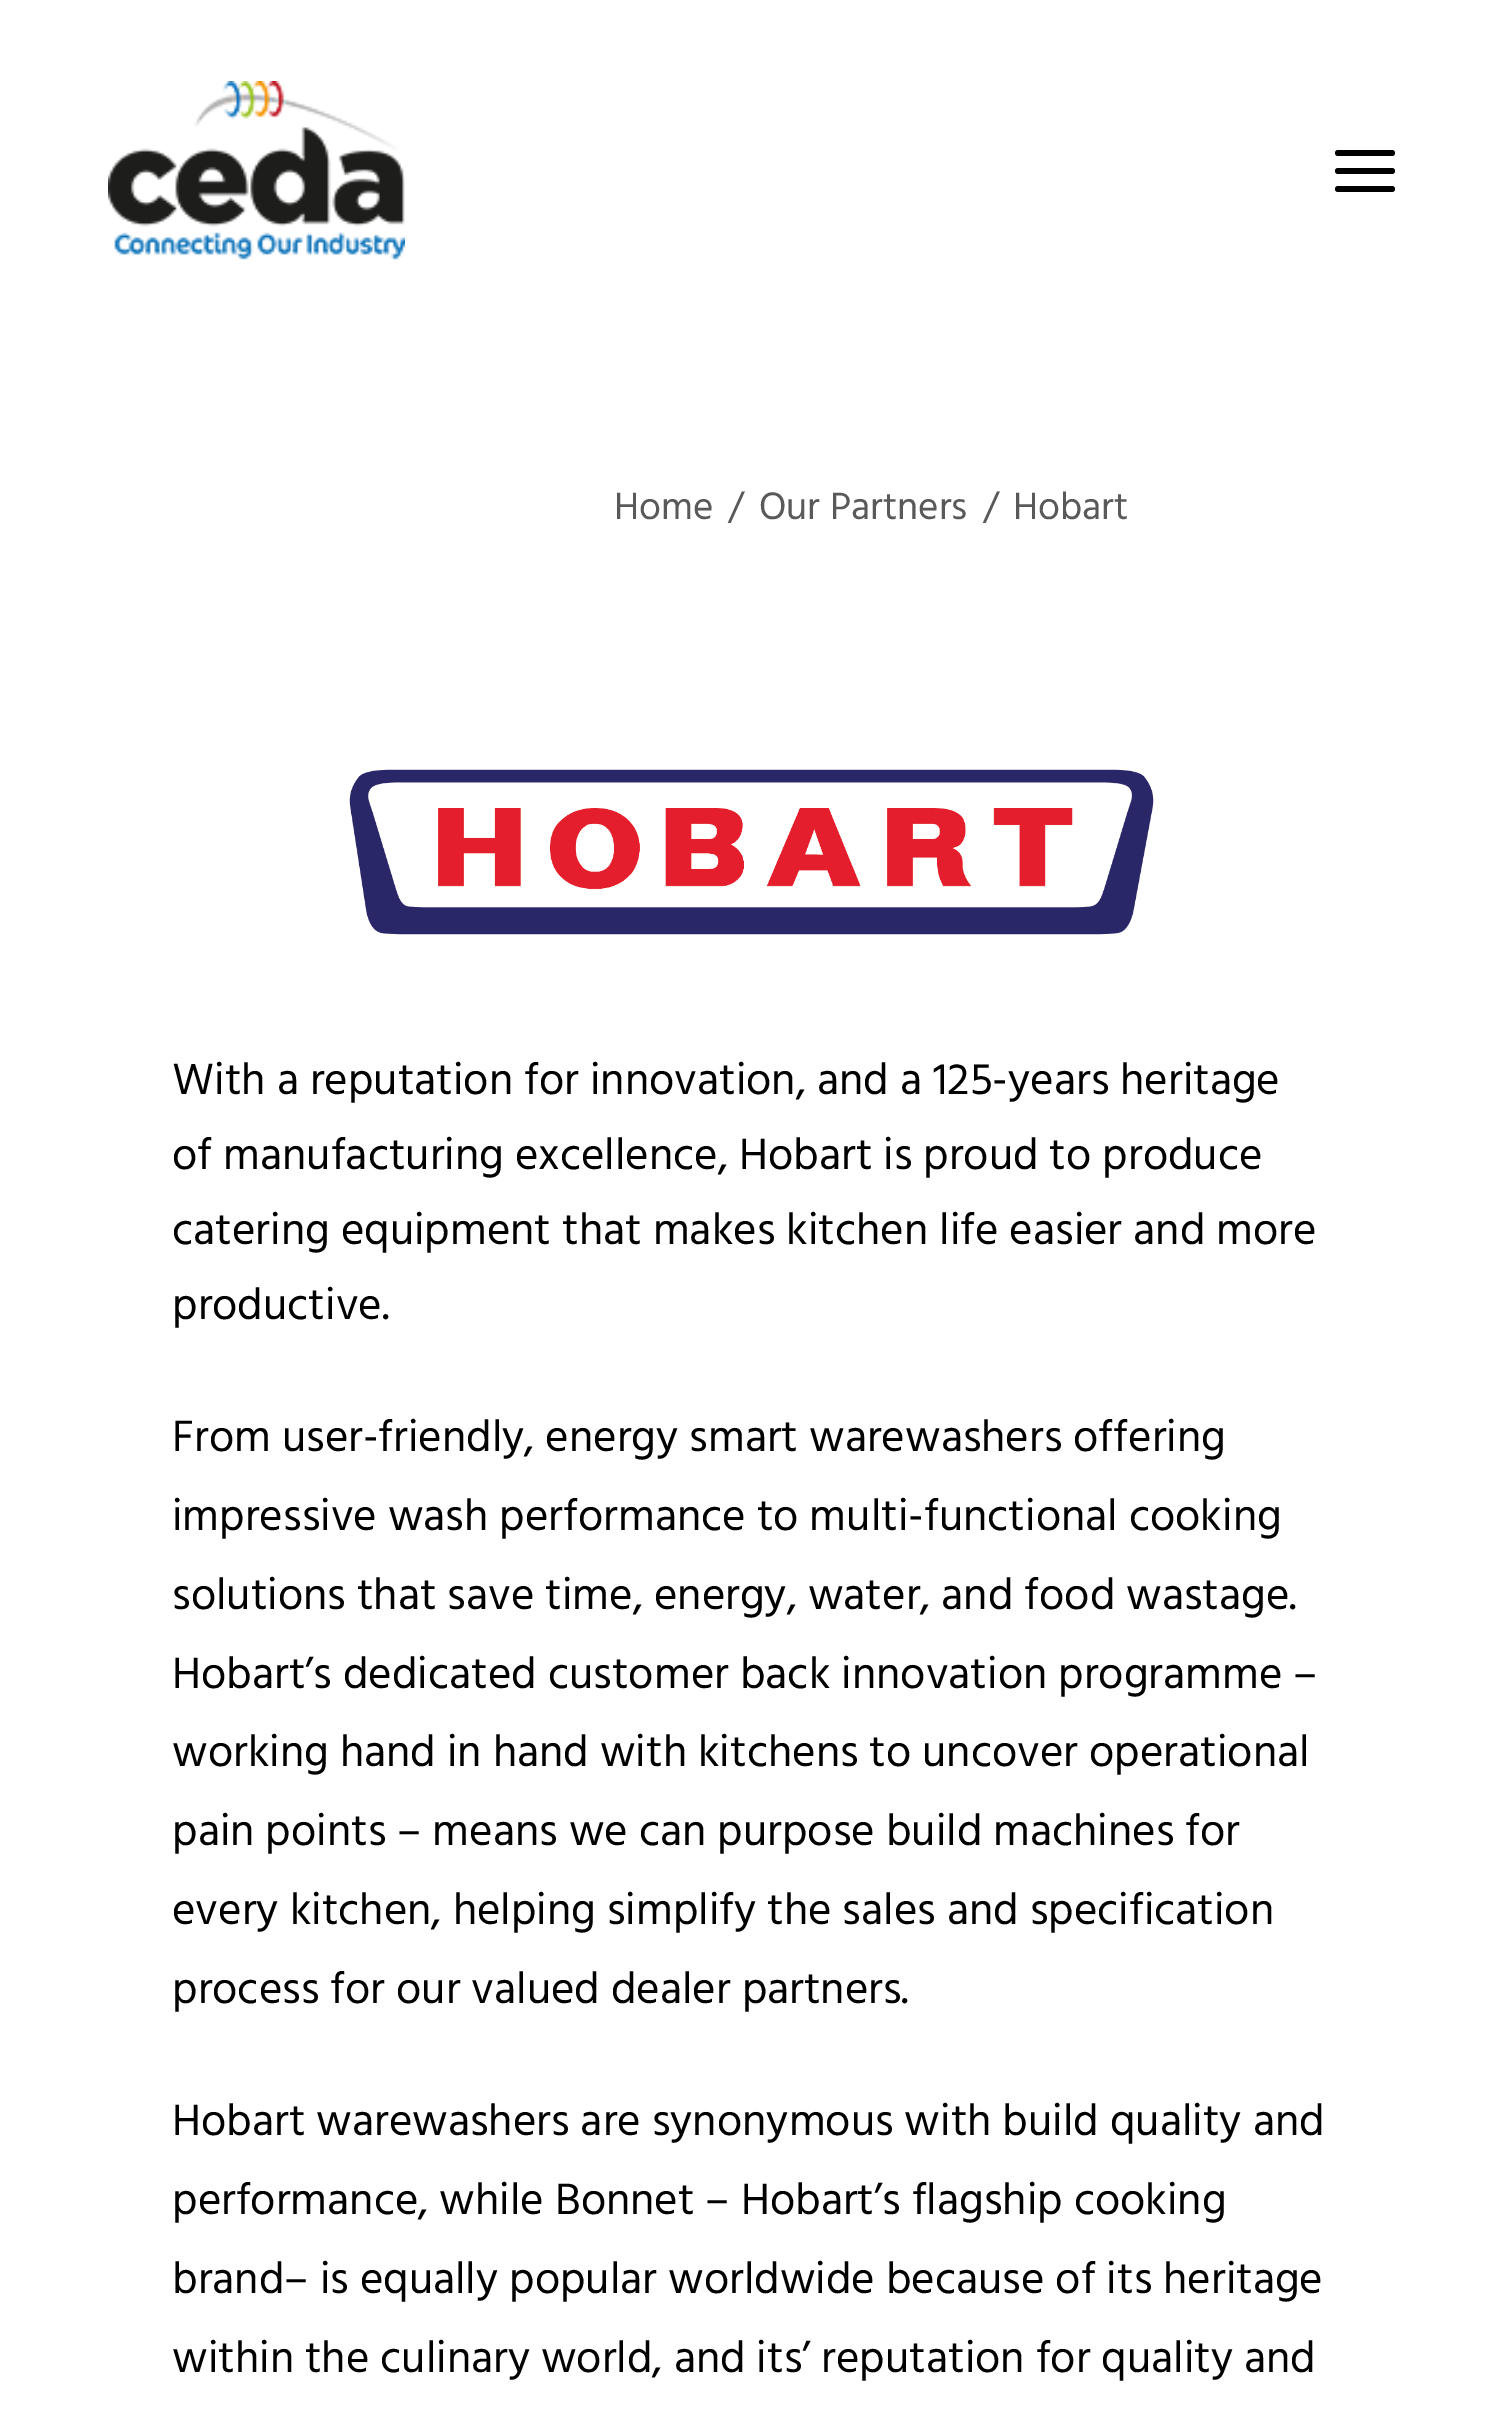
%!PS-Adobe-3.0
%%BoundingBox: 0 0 1502 2431
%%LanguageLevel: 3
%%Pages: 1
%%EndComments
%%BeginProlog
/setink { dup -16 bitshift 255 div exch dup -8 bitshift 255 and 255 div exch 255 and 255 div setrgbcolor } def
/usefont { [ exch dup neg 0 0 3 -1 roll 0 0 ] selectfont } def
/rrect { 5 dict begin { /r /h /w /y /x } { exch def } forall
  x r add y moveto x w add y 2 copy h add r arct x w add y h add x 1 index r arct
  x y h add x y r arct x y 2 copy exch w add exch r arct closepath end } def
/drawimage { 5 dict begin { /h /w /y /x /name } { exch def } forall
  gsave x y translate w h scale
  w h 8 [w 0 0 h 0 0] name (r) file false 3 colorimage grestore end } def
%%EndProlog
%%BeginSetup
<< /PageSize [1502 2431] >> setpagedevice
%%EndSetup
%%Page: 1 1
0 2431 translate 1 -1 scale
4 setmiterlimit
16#FFFFFF setink
0 0 1502 2431 rectfill
(img1.raw) 108 81 297 179 drawimage
16#000000 setink
1335 168 60 6 3 rrect fill
1335 150 60 6 3 rrect fill
1335 186 60 6 3 rrect fill
/Hind-Regular 39 usefont
16#595959 setink
[
    [(Home) 614 519]
    [(/) 728 519]
    [(Our Partners) 759 519]
    [(/) 983 519]
    [(Hobart) 1013 519]
] { aload pop moveto show } forall
(img2.raw) 349 769 805 166 drawimage
/Hind-Regular 45 usefont
16#000000 setink
[
    [(With a reputation for innovation, and a 125-years heritage) 172 1094]
    [(of manufacturing excellence, Hobart is proud to produce) 172 1169]
    [(catering equipment that makes kitchen life easier and more) 172 1244]
    [(productive.) 172 1319]
    [(From user-friendly, energy smart warewashers offering) 172 1451]
    [(impressive wash performance to multi-functional cooking) 172 1530]
    [(solutions that save time, energy, water, and food wastage.) 172 1609]
    [(Hobart’s dedicated customer back innovation programme –) 172 1688]
    [(working hand in hand with kitchens to uncover operational) 172 1766]
    [(pain points – means we can purpose build machines for) 172 1845]
    [(every kitchen, helping simplify the sales and specification) 172 1924]
    [(process for our valued dealer partners.) 172 2003]
    [(Hobart warewashers are synonymous with build quality and) 172 2135]
    [(performance, while Bonnet – Hobart’s flagship cooking) 172 2214]
    [(brand– is equally popular worldwide because of its heritage) 172 2293]
    [(within the culinary world, and its’ reputation for quality and) 172 2372]
] { aload pop moveto show } forall
showpage
%%EOF
